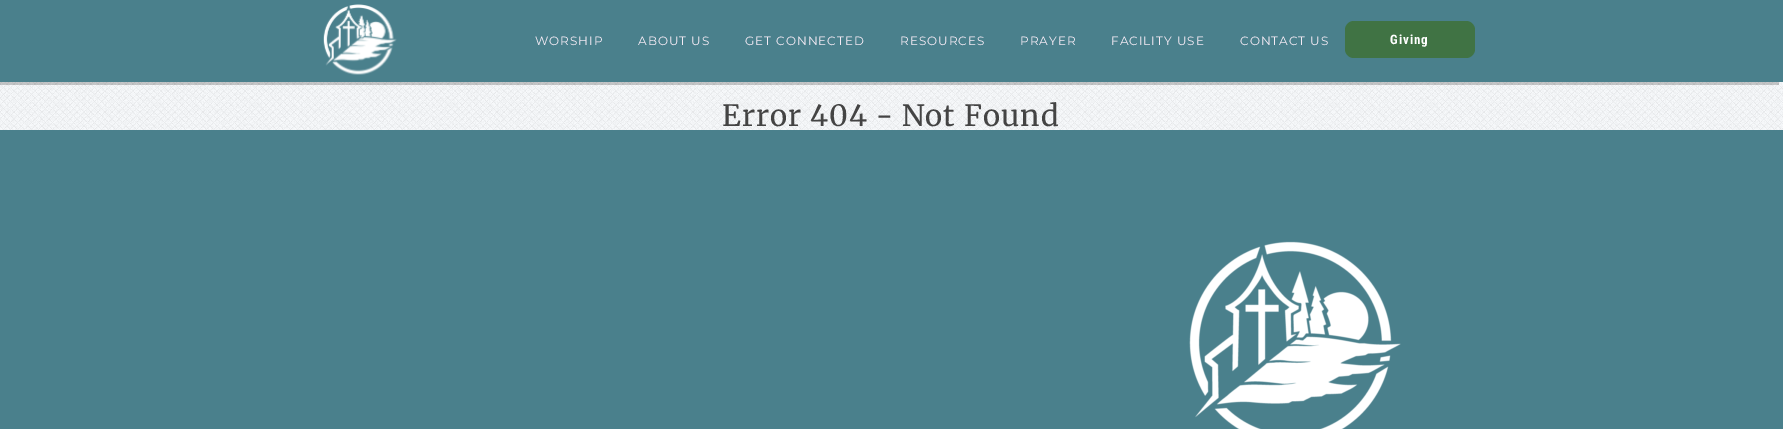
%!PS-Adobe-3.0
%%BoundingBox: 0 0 1783 429
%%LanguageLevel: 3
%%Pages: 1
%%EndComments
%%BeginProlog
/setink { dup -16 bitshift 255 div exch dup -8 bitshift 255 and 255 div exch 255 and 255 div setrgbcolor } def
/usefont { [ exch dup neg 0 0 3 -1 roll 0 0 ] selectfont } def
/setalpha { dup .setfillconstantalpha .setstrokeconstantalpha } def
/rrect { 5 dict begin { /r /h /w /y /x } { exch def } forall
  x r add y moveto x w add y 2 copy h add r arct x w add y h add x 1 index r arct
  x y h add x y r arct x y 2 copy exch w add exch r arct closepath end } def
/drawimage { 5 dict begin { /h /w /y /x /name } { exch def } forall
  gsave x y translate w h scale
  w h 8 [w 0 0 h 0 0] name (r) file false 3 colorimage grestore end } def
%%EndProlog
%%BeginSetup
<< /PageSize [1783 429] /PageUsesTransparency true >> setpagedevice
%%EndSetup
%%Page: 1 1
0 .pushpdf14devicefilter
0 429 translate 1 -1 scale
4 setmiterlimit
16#FCFCFC setink
0 0 1783 429 rectfill
(img1.raw) 0 82 1783 48 drawimage
0.2 setalpha
16#000000 setink
-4 3 moveto -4 85 lineto 1779 85 lineto 1779 82 lineto 0 82 lineto 0 3 lineto closepath fill
1 setalpha
16#4A808C setink
0 0 1783 82 rectfill
(img2.raw) 323 4 74 71 drawimage
/Montserrat-Regular 12 usefont
16#F5EBF5 setink
535 45 moveto 1 0 (WORSHIP) ashow
638 45 moveto 1 0 (ABOUT US) ashow
745 45 moveto 1 0 (GET CONNECTED) ashow
900 45 moveto 1 0 (RESOURCES) ashow
1020 45 moveto 1 0 (PRAYER) ashow
1111 45 moveto 1 0 (FACILITY USE) ashow
1240 45 moveto 1 0 (CONTACT US) ashow
16#407344 setink
1345 21 130 37 9 rrect fill
/RobotoCondensed-Bold 13 usefont
16#FFFFFF setink
1390 44 moveto 1 0 (Giving) ashow
/Merriweather-Regular 29.25 usefont
16#444444 setink
722 126 moveto 1 0 (Error 404 - Not Found) ashow
16#4A808C setink
0 130 1783 299 rectfill
(img3.raw) 1189 241 212 188 drawimage
.poppdf14devicefilter showpage
%%EOF
